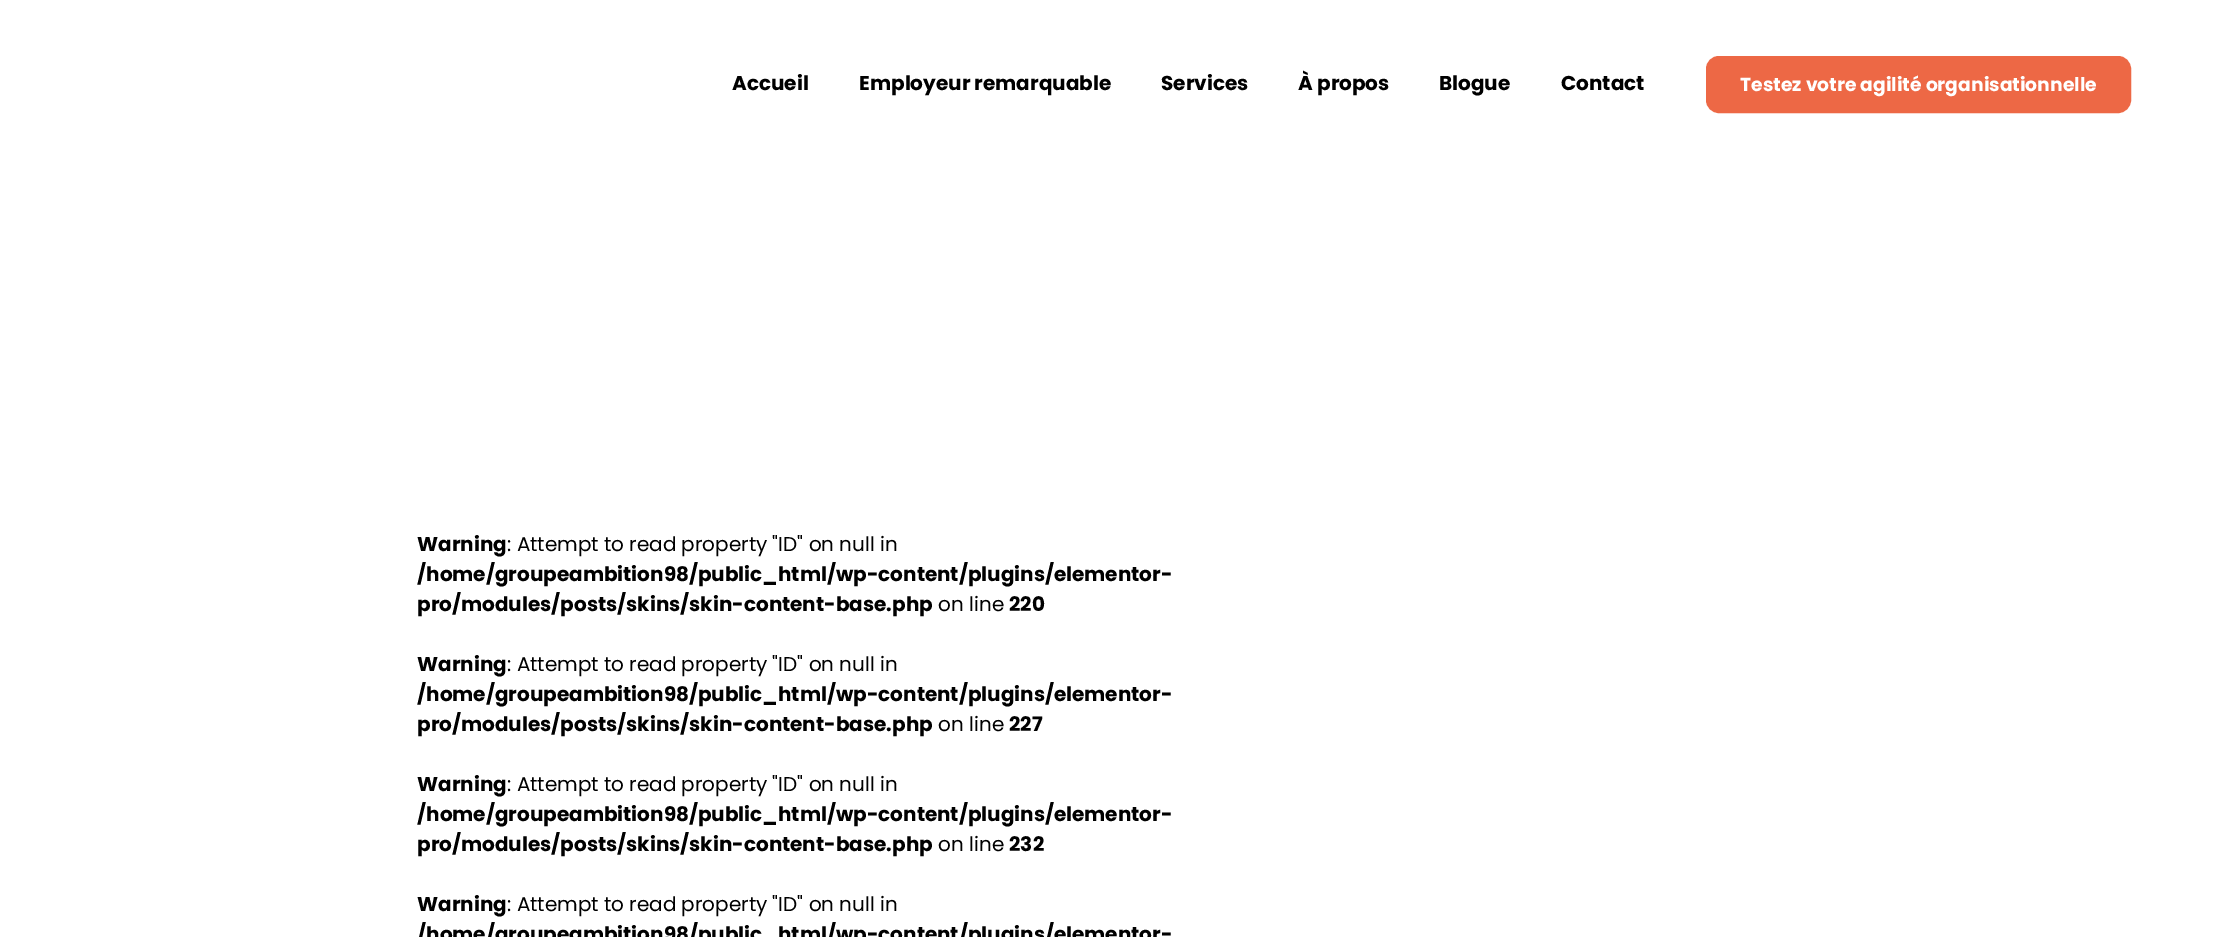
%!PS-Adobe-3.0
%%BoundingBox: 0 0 2233 937
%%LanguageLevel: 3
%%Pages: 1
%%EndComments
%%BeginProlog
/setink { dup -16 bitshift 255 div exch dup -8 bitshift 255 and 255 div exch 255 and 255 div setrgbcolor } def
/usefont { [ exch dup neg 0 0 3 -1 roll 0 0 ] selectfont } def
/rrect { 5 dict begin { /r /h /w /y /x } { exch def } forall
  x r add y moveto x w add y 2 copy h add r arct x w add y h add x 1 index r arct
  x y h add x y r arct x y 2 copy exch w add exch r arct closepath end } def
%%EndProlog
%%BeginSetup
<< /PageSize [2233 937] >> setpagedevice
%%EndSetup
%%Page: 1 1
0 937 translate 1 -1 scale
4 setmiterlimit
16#FFFFFF setink
0 0 2233 937 rectfill
/Poppins-Bold 20 usefont
16#000000 setink
[
    [(Accueil) 732 90]
    [(Employeur remarquable) 859 90]
    [(Services) 1161 90]
    [(À propos) 1298 90]
    [(Blogue) 1439 90]
    [(Contact) 1561 90]
] { aload pop moveto show } forall
16#ED6845 setink
1708 58 421 53 11 rrect gsave fill grestore
4 setlinewidth
stroke
/Poppins-Bold 18.75 usefont
16#FFFFFF setink
1740 91 moveto (Testez votre agilité organisationnelle) show
/Poppins-Bold 20 usefont
16#000000 setink
417 551 moveto (Warning) show
/Poppins-Regular 20 usefont
507 551 moveto (: Attempt to read property "ID" on null in) show
/Poppins-Bold 20 usefont
417 581 moveto (/home/groupeambition98/public_html/wp-content/plugins/elementor-) show
417 611 moveto (pro/modules/posts/skins/skin-content-base.php) show
/Poppins-Regular 20 usefont
938 611 moveto (on line) show
/Poppins-Bold 20 usefont
1009 611 moveto (220) show
417 671 moveto (Warning) show
/Poppins-Regular 20 usefont
507 671 moveto (: Attempt to read property "ID" on null in) show
/Poppins-Bold 20 usefont
417 701 moveto (/home/groupeambition98/public_html/wp-content/plugins/elementor-) show
417 731 moveto (pro/modules/posts/skins/skin-content-base.php) show
/Poppins-Regular 20 usefont
938 731 moveto (on line) show
/Poppins-Bold 20 usefont
1009 731 moveto (227) show
417 791 moveto (Warning) show
/Poppins-Regular 20 usefont
507 791 moveto (: Attempt to read property "ID" on null in) show
/Poppins-Bold 20 usefont
417 821 moveto (/home/groupeambition98/public_html/wp-content/plugins/elementor-) show
417 851 moveto (pro/modules/posts/skins/skin-content-base.php) show
/Poppins-Regular 20 usefont
938 851 moveto (on line) show
/Poppins-Bold 20 usefont
1009 851 moveto (232) show
417 911 moveto (Warning) show
/Poppins-Regular 20 usefont
507 911 moveto (: Attempt to read property "ID" on null in) show
/Poppins-Bold 20 usefont
417 941 moveto (/home/groupeambition98/public_html/wp-content/plugins/elementor-) show
showpage
%%EOF
